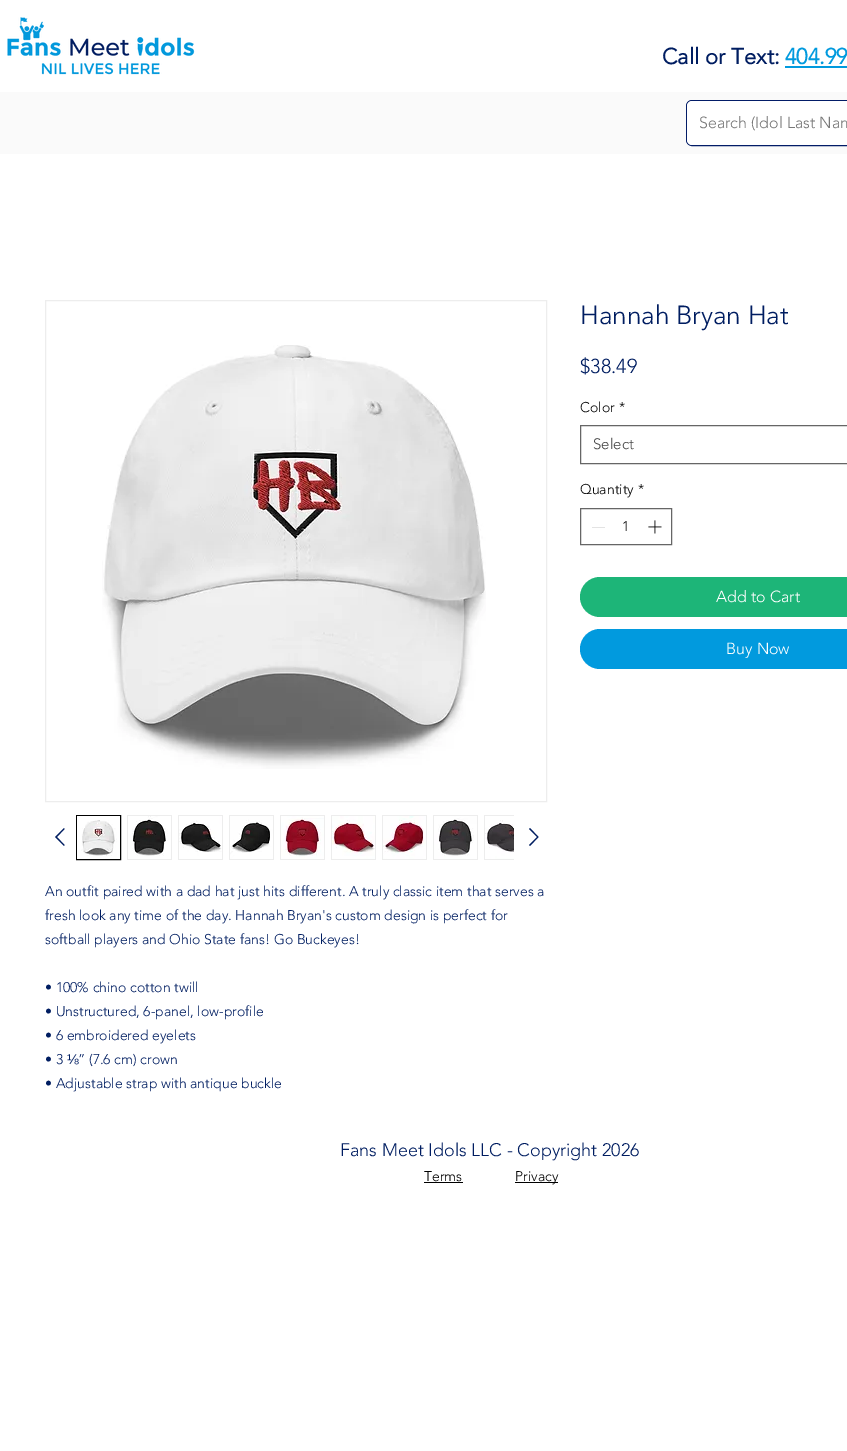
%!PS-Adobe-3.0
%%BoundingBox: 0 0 847 1451
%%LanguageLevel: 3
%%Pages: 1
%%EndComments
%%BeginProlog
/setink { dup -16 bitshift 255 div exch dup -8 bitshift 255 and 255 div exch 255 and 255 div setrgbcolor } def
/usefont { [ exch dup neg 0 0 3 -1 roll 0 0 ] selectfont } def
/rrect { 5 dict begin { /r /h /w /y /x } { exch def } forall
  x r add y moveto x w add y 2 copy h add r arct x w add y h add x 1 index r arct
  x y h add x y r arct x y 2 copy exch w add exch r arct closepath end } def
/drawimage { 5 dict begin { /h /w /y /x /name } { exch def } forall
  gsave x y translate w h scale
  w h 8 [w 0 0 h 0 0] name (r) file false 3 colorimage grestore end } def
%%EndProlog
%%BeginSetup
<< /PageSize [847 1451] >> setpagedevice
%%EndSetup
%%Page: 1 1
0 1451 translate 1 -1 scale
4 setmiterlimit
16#FFFFFF setink
0 0 847 1451 rectfill
(img1.raw) 7 17 188 58 drawimage
/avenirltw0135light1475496-Bold 22 usefont
16#001D61 setink
662 64 moveto (Call or Text:) show
16#019ADE setink
785 64 moveto (404.99) show
785 66 62 2 rectfill
16#FAFAFA setink
0 92 847 62 rectfill
16#021C67 setink
686.5 100.5 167 45 5.5 rrect stroke
16#FFFFFF setink
687 101 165 44 5 rrect fill
/avenirltw0135light1475496-Light 16 usefont
16#787878 setink
699 128 moveto (Search \(Idol Last Nam) show
/avenirltw0135light1475496-Light 26 usefont
16#001D61 setink
580 324 moveto (Hannah Bryan Hat) show
/avenirltw0135light1475496-Light 20 usefont
580 373 moveto ($38.49) show
/avenirltw0135light1475496-Light 14 usefont
16#000000 setink
580 412 moveto (Color) show
619 412 moveto (*) show
16#666666 setink
580.5 425.5 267 38 rectstroke
/avenirltw0135light1475496-Light 15 usefont
16#444444 setink
593 449 moveto (Select) show
/avenirltw0135light1475496-Light 14 usefont
16#000000 setink
580 494 moveto (Quantity) show
638 494 moveto (*) show
16#666666 setink
580.5 508.5 91 36 rectstroke
16#E3E3E3 setink
592 527 13 1 rectfill
16#000000 setink
622 531 moveto (1) show
(img2.raw) 648 520 14 14 drawimage
16#1DB578 setink
580 577 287 40 20 rrect fill
/avenirltw0135light1475496-Light 16 usefont
16#FFFFFF setink
716 602 moveto (Add to Cart) show
16#019ADE setink
580 629 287 40 20 rrect fill
16#FFFFFF setink
726 654 moveto (Buy Now) show
16#EDEDED setink
45.5 300.5 501 501 rectstroke
(img3.raw) 102 345 384 424 drawimage
16#001D61 setink
64 828 moveto 64.5 829 lineto 57 837 lineto 64.5 845 lineto 64 846 lineto 55 837 lineto closepath eofill
16#000000 setink
76.5 815.5 44 44 rectstroke
(img4.raw) 77 816 43 43 drawimage
16#EDEDED setink
127 815 45 45 rectfill
(img5.raw) 128 816 43 43 drawimage
178 815 45 45 rectfill
(img6.raw) 179 816 43 43 drawimage
229 815 45 45 rectfill
(img7.raw) 230 816 43 43 drawimage
280 815 45 45 rectfill
(img8.raw) 281 816 43 43 drawimage
331 815 45 45 rectfill
(img9.raw) 332 816 43 43 drawimage
382 815 45 45 rectfill
(img10.raw) 383 816 43 43 drawimage
433 815 45 45 rectfill
(img11.raw) 434 816 43 43 drawimage
484 815 30 45 rectfill
(img12.raw) 485 816 29 43 drawimage
16#001D61 setink
530 828 moveto 538.5 837 lineto 530 846 lineto 529 845 lineto 537 837 lineto 529 829 lineto closepath eofill
/avenirltw0135light1475496-Light 14 usefont
[
    [(An outfit paired with a dad hat just hits different. A truly classic item that serves a) 45 896]
    [(fresh look any time of the day. Hannah Bryan's custom design is perfect for) 45 920]
    [(softball players and Ohio State fans! Go Buckeyes!) 45 944]
    [(• 100% chino cotton twill) 45 992]
    [(• Unstructured, 6-panel, low-profile) 45 1016]
    [(• 6 embroidered eyelets) 45 1040]
    [(• 3) 45 1064]
] { aload pop moveto show } forall
/LiberationSans-Regular 14 usefont
67 1064 moveto (⅛) show
/avenirltw0135light1475496-Light 14 usefont
78 1064 moveto (” \(7.6 cm\) crown) show
45 1088 moveto (• Adjustable strap with antique buckle) show
/avenirltw0135light1475496-Light 18 usefont
340 1156 moveto (Fans Meet Idols LLC - Copyright 2026) show
/avenirltw0135light1475496-Light 14 usefont
16#000000 setink
424 1181 moveto (Terms) show
424 1182 39 1 rectfill
515 1182 43 1 rectfill
515 1181 moveto (Privacy) show
showpage
%%EOF
